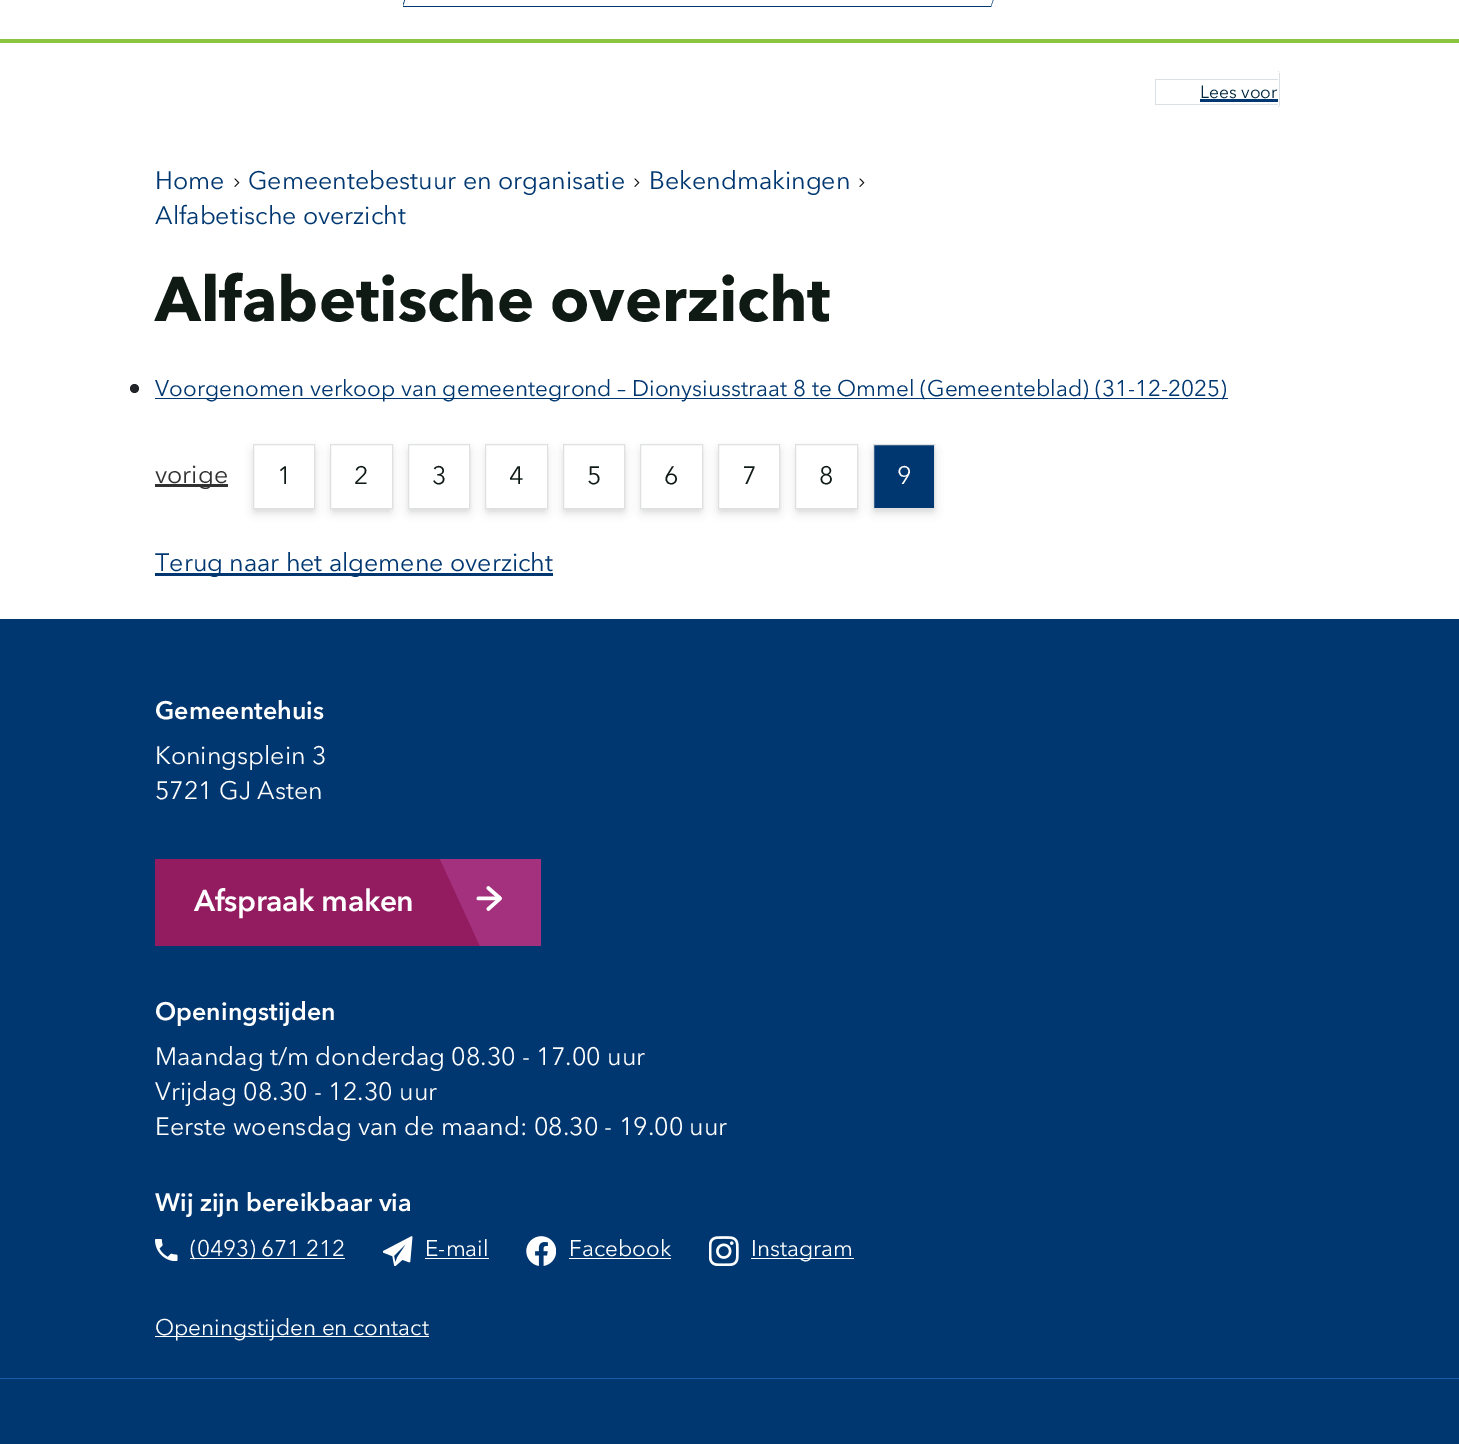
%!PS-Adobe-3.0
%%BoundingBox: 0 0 1459 1444
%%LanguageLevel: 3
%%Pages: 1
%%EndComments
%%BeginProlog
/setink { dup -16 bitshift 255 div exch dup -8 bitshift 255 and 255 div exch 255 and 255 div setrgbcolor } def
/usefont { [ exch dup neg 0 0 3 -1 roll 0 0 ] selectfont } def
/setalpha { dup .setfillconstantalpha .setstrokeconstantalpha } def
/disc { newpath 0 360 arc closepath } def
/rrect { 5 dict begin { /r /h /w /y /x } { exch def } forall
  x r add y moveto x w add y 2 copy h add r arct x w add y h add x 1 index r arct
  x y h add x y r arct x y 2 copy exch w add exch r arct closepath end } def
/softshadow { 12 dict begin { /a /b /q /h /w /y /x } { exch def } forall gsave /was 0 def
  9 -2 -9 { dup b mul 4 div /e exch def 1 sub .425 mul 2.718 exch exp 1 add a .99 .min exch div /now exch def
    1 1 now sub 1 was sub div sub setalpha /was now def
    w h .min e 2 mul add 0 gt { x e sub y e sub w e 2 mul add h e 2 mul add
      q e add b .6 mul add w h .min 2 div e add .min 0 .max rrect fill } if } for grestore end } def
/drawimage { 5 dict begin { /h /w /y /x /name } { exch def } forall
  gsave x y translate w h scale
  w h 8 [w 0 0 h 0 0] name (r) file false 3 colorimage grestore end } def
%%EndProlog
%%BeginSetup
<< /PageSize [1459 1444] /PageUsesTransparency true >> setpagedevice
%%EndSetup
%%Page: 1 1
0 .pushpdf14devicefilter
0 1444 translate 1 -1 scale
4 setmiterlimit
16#FFFFFF setink
0 0 1459 1444 rectfill
16#8BC53F setink
0 39 1459 4 rectfill
gsave
403 0 625 8 rectclip
16#003770 setink
1027 -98 moveto 991 6 lineto 403 6 lineto 439 -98 lineto closepath 1028 -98 moveto 439 -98 lineto 402 7 lineto 991 7 lineto closepath fill
grestore
/AvenirNext-Regular 17.5 usefont
16#00263D setink
1200 98 moveto (Lees voor) show
[
    [1155 79 123 1 16#D9DFE2]
    [1155 104 123 1 16#D9DFE2]
    [1155 79 1 26 16#D9DFE2]
    [1278 71 1 1 16#D9DFE2]
    [1279 73 1 33 16#D9DFE2]
    [1278 106 1 1 16#D9DFE2]
    [1200 99 78 3 16#003770]
] { aload pop setink rectfill } forall
/AvenirNext-Regular 25 usefont
155 189 moveto (Home) show
(img1.raw) 234 178 6 9 drawimage
248 189 moveto (Gemeentebestuur en organisatie) show
(img1.raw) 634 178 6 9 drawimage
649 189 moveto (Bekendmakingen) show
(img1.raw) 859 178 6 9 drawimage
155 224 moveto (Alfabetische overzicht) show
/AvenirNext-Bold 62.5 usefont
16#0F1A15 setink
155 321 moveto (Alfabetische overzicht) show
16#212529 setink
134.5 388.5 4.5 disc fill
16#003770 setink
155 398 1073 1 rectfill
/AvenirNext-Regular 22.5 usefont
155 396 moveto (Voorgenomen verkoop van gemeentegrond – Dionysiusstraat 8 te Ommel \(Gemeenteblad\) \(31-12-2025\)) show
16#313132 setink
155 484 73 3 rectfill
/AvenirNext-Regular 25 usefont
155 483 moveto (vorige) show
16#000000 setink
255 451 58 60 0 5 0.2 softshadow
16#FFFFFF setink
253.5 444.5 moveto 314.5 444.5 lineto 314.5 508.5 lineto 253.5 508.5 lineto closepath gsave fill grestore
16#DFE0E2 setink
stroke
16#0F1A15 setink
277 484 moveto (1) show
16#000000 setink
333 451 57 60 0 5 0.2 softshadow
16#FFFFFF setink
330.5 444.5 moveto 392.5 444.5 lineto 392.5 508.5 lineto 330.5 508.5 lineto closepath gsave fill grestore
16#DFE0E2 setink
stroke
16#0F1A15 setink
354 484 moveto (2) show
16#000000 setink
410 451 58 60 0 5 0.2 softshadow
16#FFFFFF setink
408.5 444.5 moveto 469.5 444.5 lineto 469.5 508.5 lineto 408.5 508.5 lineto closepath gsave fill grestore
16#DFE0E2 setink
stroke
16#0F1A15 setink
432 484 moveto (3) show
16#000000 setink
488 451 57 60 0 5 0.2 softshadow
16#FFFFFF setink
485.5 444.5 moveto 547.5 444.5 lineto 547.5 508.5 lineto 485.5 508.5 lineto closepath gsave fill grestore
16#DFE0E2 setink
stroke
16#0F1A15 setink
509 484 moveto (4) show
16#000000 setink
565 451 58 60 0 5 0.2 softshadow
16#FFFFFF setink
563.5 444.5 moveto 624.5 444.5 lineto 624.5 508.5 lineto 563.5 508.5 lineto closepath gsave fill grestore
16#DFE0E2 setink
stroke
16#0F1A15 setink
587 484 moveto (5) show
16#000000 setink
643 451 57 60 0 5 0.2 softshadow
16#FFFFFF setink
640.5 444.5 moveto 702.5 444.5 lineto 702.5 508.5 lineto 640.5 508.5 lineto closepath gsave fill grestore
16#DFE0E2 setink
stroke
16#0F1A15 setink
664 484 moveto (6) show
16#000000 setink
720 451 58 60 0 5 0.2 softshadow
16#FFFFFF setink
718.5 444.5 moveto 779.5 444.5 lineto 779.5 508.5 lineto 718.5 508.5 lineto closepath gsave fill grestore
16#DFE0E2 setink
stroke
16#0F1A15 setink
742 484 moveto (7) show
16#000000 setink
798 451 57 60 0 5 0.2 softshadow
16#FFFFFF setink
795.5 444.5 moveto 857.5 444.5 lineto 857.5 508.5 lineto 795.5 508.5 lineto closepath gsave fill grestore
16#DFE0E2 setink
stroke
16#0F1A15 setink
819 484 moveto (8) show
16#000000 setink
875 451 58 60 0 5 0.2 softshadow
16#003770 setink
873.5 444.5 moveto 934.5 444.5 lineto 934.5 508.5 lineto 873.5 508.5 lineto closepath gsave fill grestore
16#DFE0E2 setink
stroke
16#FFFFFF setink
897 484 moveto (9) show
16#003770 setink
155 573 398 3 rectfill
155 571 moveto (Terug naar het algemene overzicht) show
0 619 1459 825 rectfill
/AvenirNext-SemiBold 25 usefont
16#FFFFFF setink
155 719 moveto (Gemeentehuis) show
/AvenirNext-Regular 25 usefont
155 764 moveto (Koningsplein 3) show
155 799 moveto (5721 GJ Asten) show
16#931C60 setink
155 859 325 87 rectfill
16#A3317D setink
541 946 moveto 480 946 lineto 440 859 lineto 541 859 lineto closepath fill
/AvenirNext-SemiBold 30 usefont
16#FFFFFF setink
194 911 moveto -0.4 0 (Afspraak maken) ashow
(img2.raw) 476 886 26 25 drawimage
/AvenirNext-SemiBold 25 usefont
155 1020 moveto (Openingstijden) show
/AvenirNext-Regular 25 usefont
[
    [(Maandag t/m donderdag 08.30 - 17.00 uur) 155 1065]
    [(Vrijdag 08.30 - 12.30 uur) 155 1100]
    [(Eerste woensdag van de maand: 08.30 - 19.00 uur) 155 1135]
] { aload pop moveto show } forall
/AvenirNext-SemiBold 25 usefont
155 1211 moveto (Wij zijn bereikbaar via) show
(img3.raw) 155 1239 23 22 drawimage
190 1258 155 1 rectfill
/AvenirNext-Regular 22.5 usefont
190 1256 moveto (\(0493\) 671 212) show
(img4.raw) 383 1236 30 30 drawimage
425 1256 moveto (E-mail) show
425 1258 64 1 rectfill
(img5.raw) 526 1236 30 30 drawimage
569 1256 moveto (Facebook) show
569 1258 102 1 rectfill
(img6.raw) 709 1236 30 30 drawimage
751 1258 103 1 rectfill
751 1256 moveto (Instagram) show
155 1336 274 1 rectfill
155 1335 moveto (Openingstijden en contact) show
16#155EAB setink
0 1378 1459 1 rectfill
.poppdf14devicefilter showpage
%%EOF
